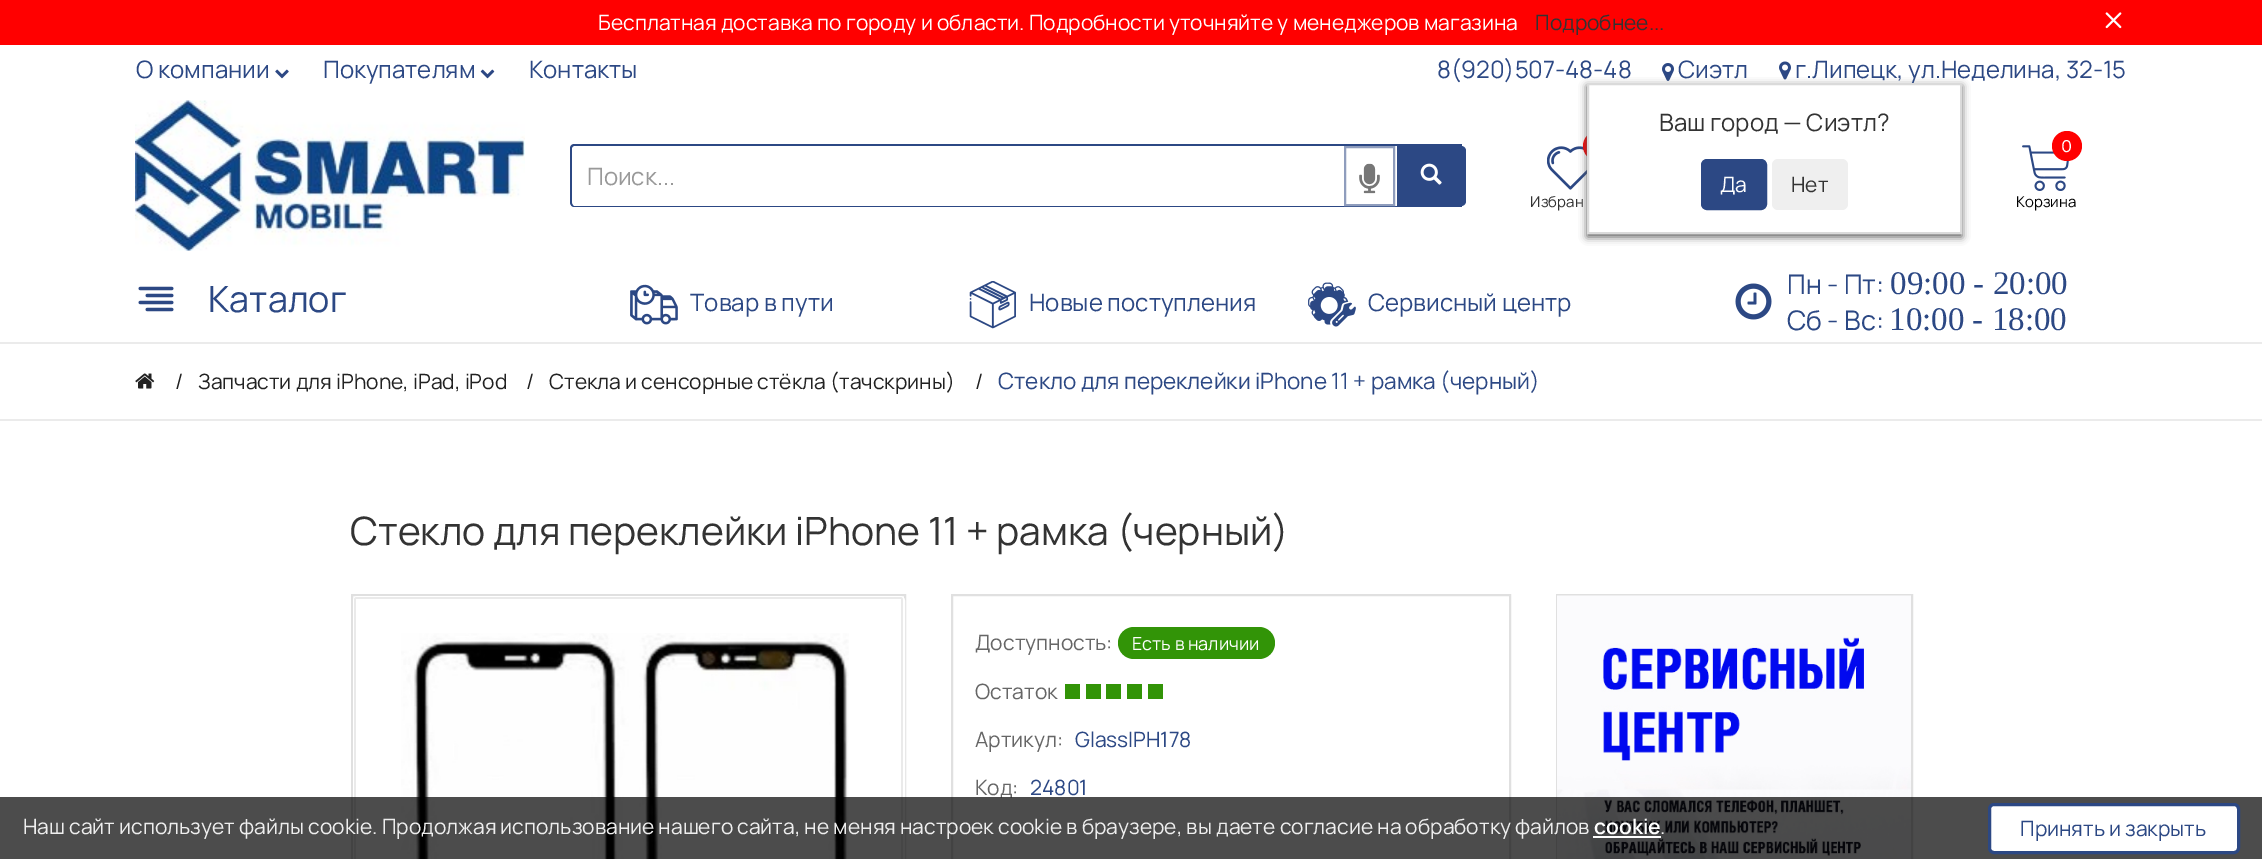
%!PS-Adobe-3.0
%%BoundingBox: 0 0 2262 859
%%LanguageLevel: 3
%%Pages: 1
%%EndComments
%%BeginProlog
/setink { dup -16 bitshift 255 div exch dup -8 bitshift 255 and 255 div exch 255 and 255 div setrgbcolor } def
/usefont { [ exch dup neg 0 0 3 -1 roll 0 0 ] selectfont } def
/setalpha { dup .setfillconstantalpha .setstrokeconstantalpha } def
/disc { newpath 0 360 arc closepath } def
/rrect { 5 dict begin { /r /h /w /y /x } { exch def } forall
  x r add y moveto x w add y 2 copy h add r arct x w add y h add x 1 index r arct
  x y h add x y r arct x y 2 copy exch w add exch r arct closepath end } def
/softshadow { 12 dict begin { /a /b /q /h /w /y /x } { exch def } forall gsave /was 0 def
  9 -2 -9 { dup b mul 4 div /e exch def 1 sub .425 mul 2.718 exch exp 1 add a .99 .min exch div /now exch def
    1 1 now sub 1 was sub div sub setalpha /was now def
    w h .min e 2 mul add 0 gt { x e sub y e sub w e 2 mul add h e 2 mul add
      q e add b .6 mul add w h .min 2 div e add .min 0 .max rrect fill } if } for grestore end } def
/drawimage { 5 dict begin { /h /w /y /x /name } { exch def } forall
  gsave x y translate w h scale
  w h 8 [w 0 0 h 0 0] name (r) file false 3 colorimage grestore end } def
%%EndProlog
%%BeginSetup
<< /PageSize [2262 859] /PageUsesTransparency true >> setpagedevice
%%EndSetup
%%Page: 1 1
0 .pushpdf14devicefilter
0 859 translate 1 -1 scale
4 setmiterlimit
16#FFFFFF setink
0 0 2262 859 rectfill
16#FF0000 setink
0 0 2262 45 rectfill
/Manrope-Regular 21 usefont
16#FFFFFF setink
598 30 moveto (Бесплатная доставка по городу и области. Подробности уточняйте у менеджеров магазина) show
16#333333 setink
1535 30 moveto (Подробнее...) show
(img1.raw) 2105 12 17 17 drawimage
/Manrope-Regular 24 usefont
16#2C4884 setink
136 78 moveto (О компании) show
(img2.raw) 275 69 14 10 drawimage
323 78 moveto (Покупателям) show
(img3.raw) 480 69 15 10 drawimage
529 78 moveto (Контакты) show
1437 78 moveto (8\(920\)507-48-48) show
(img4.raw) 1662 63 12 18 drawimage
1678 78 moveto (Сиэтл) show
(img5.raw) 1779 61 12 19 drawimage
(img9.raw) 1547 146 40 44 drawimage
16#FF0000 setink
1598 146 15 disc fill
16#5B5A5A setink
1587 86 375 151 0 4 1 softshadow
16#2C4884 setink
1795 78 moveto (г.Липецк, ул.Неделина, 32-15) show
16#FFFFFF setink
1588 84 moveto 1961 84 lineto 1961 233 lineto 1588 233 lineto closepath gsave fill grestore
16#DADADA setink
2 setlinewidth
stroke
16#333333 setink
1659 131 moveto (Ваш город — Сиэтл?) show
16#2C4884 setink
1702 160 64 49 5 rrect gsave fill grestore
stroke
/Manrope-Regular 21 usefont
16#FFFFFF setink
1720 192 moveto (Да) show
16#EFEFEF setink
1772 159 76 51 6 rrect fill
16#333333 setink
1791 192 moveto (Нет) show
(img6.raw) 135 100 390 151 drawimage
16#2C4884 setink
574 144 moveto 1462 144 lineto 1462 207 lineto 574 207 lineto 572 207 570 205 570 202 curveto 570 148 lineto 570 146 572 144 574 144 curveto closepath 574 146 moveto 1462 146 lineto 1462 206 lineto 574 206 lineto 573 206 572 204 572 202 curveto 572 148 lineto 572 147 573 146 574 146 curveto closepath eofill
16#FFFFFF setink
572 146 712 60 5 rrect fill
/Manrope-Regular 24 usefont
16#999999 setink
587 185 moveto (Поиск...) show
16#8F9DBD setink
1345 147 49 58 rectstroke
(img7.raw) 1359 163 21 31 drawimage
16#2C4884 setink
1397 146 moveto 1461 146 lineto 1464 146 1466 148 1466 151 curveto 1466 201 lineto 1466 204 1464 206 1461 206 curveto 1397 206 lineto closepath fill
(img8.raw) 1420 163 22 22 drawimage
/Manrope-Regular 15 usefont
16#333333 setink
1530 207 moveto 0.25 0 (Избран) ashow
(img10.raw) 2022 145 47 46 drawimage
16#FF0000 setink
2067 146 15 disc fill
/WorkSans-Regular 18 usefont
16#FFFFFF setink
2061 152 moveto (0) show
/Manrope-Regular 15 usefont
16#000000 setink
2016 207 moveto (Корзина) show
(img11.raw) 138 286 36 26 drawimage
/Manrope-Regular 36 usefont
16#2C4884 setink
208 312 moveto (Каталог) show
(img12.raw) 630 284 48 41 drawimage
/Manrope-Regular 24 usefont
690 311 moveto (Товар в пути) show
(img13.raw) 969 281 47 48 drawimage
1029 311 moveto (Новые поступления) show
(img14.raw) 1308 282 48 45 drawimage
1368 311 moveto (Сервисный центр) show
(img15.raw) 1735 283 37 37 drawimage
/Manrope-Regular 27 usefont
1787 294 moveto (Пн - Пт:) show
/LiberationSerif-Regular 33 usefont
1890 294 moveto (09:00 - 20:00) show
/Manrope-Regular 27 usefont
1787 330 moveto (Сб - Вс:) show
/LiberationSerif-Regular 33 usefont
1889 330 moveto (10:00 - 18:00) show
16#EBEBEB setink
0 342 2262 2 rectfill
0 419 2262 2 rectfill
(img16.raw) 135 373 20 16 drawimage
/Manrope-Regular 21 usefont
16#222222 setink
[
    [(/) 175 389]
    [(Запчасти для iPhone, iPad, iPod) 198 389]
    [(/) 526 389]
    [(Стекла и сенсорные стёкла \(тачскрины\)) 549 389]
    [(/) 975 389]
] { aload pop moveto show } forall
/Manrope-Regular 22.5 usefont
16#2C4884 setink
998 389 moveto (Стекло для переклейки iPhone 11 + рамка \(черный\)) show
/Manrope-Regular 39 usefont
16#333333 setink
350 545 moveto (Стекло для переклейки iPhone 11 + рамка \(черный\)) show
16#E0E0E0 setink
352 595 553 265 rectstroke
16#FFFFFF setink
354 597 550 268 4 rrect stroke
16#EAEAEA setink
357 597 moveto 355 597 354 598 354 600 curveto 354 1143 lineto 354 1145 355 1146 357 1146 curveto 900 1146 lineto 902 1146 903 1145 903 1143 curveto 903 600 lineto 903 598 902 597 900 597 curveto closepath 356 599 moveto 356 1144 lineto 901 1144 lineto 901 599 lineto closepath eofill
(img17.raw) 401 633 448 226 drawimage
16#E0E0E0 setink
952 595 558 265 rectstroke
/Manrope-Regular 21 usefont
16#666666 setink
975 650 moveto (Доступность:) show
16#329407 setink
1118 627 157 32 16 rrect fill
/Manrope-Regular 18 usefont
16#FFFFFF setink
1132 650 moveto (Есть в наличии) show
/Manrope-Regular 21 usefont
16#666666 setink
975 699 moveto (Остаток) show
[
    [1065 684 15 15 16#329407]
    [1086 684 15 15 16#329407]
    [1106 684 15 15 16#329407]
    [1127 684 15 15 16#329407]
    [1148 684 15 15 16#329407]
] { aload pop setink rectfill } forall
16#666666 setink
975 747 moveto (Артикул:) show
16#2C4884 setink
1075 747 moveto (GlassIPH178) show
16#666666 setink
975 795 moveto (Код:) show
16#2C4884 setink
1030 795 moveto (24801) show
16#E0E0E0 setink
1557 595 355 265 rectstroke
(img18.raw) 1557 595 354 264 drawimage
0.7 setalpha
16#000000 setink
0 797 2262 62 rectfill
1 setalpha
16#EEEEEE setink
23 834 moveto (Наш сайт использует файлы cookie. Продолжая использование нашего сайта, не меняя настроек cookie в браузере, вы даете согласие на обработку файлов) show
/Manrope-SemiBold 21 usefont
16#FFFFFF setink
1594 834 moveto (cookie) show
1593 836 68 2 rectfill
/Manrope-Regular 21 usefont
16#EEEEEE setink
1660 834 moveto (.) show
16#FFFFFF setink
1989.5 804.5 249 48 4.5 rrect gsave fill grestore
16#2C4884 setink
3 setlinewidth
stroke
2020 836 moveto (Принять и закрыть) show
.poppdf14devicefilter showpage
%%EOF
